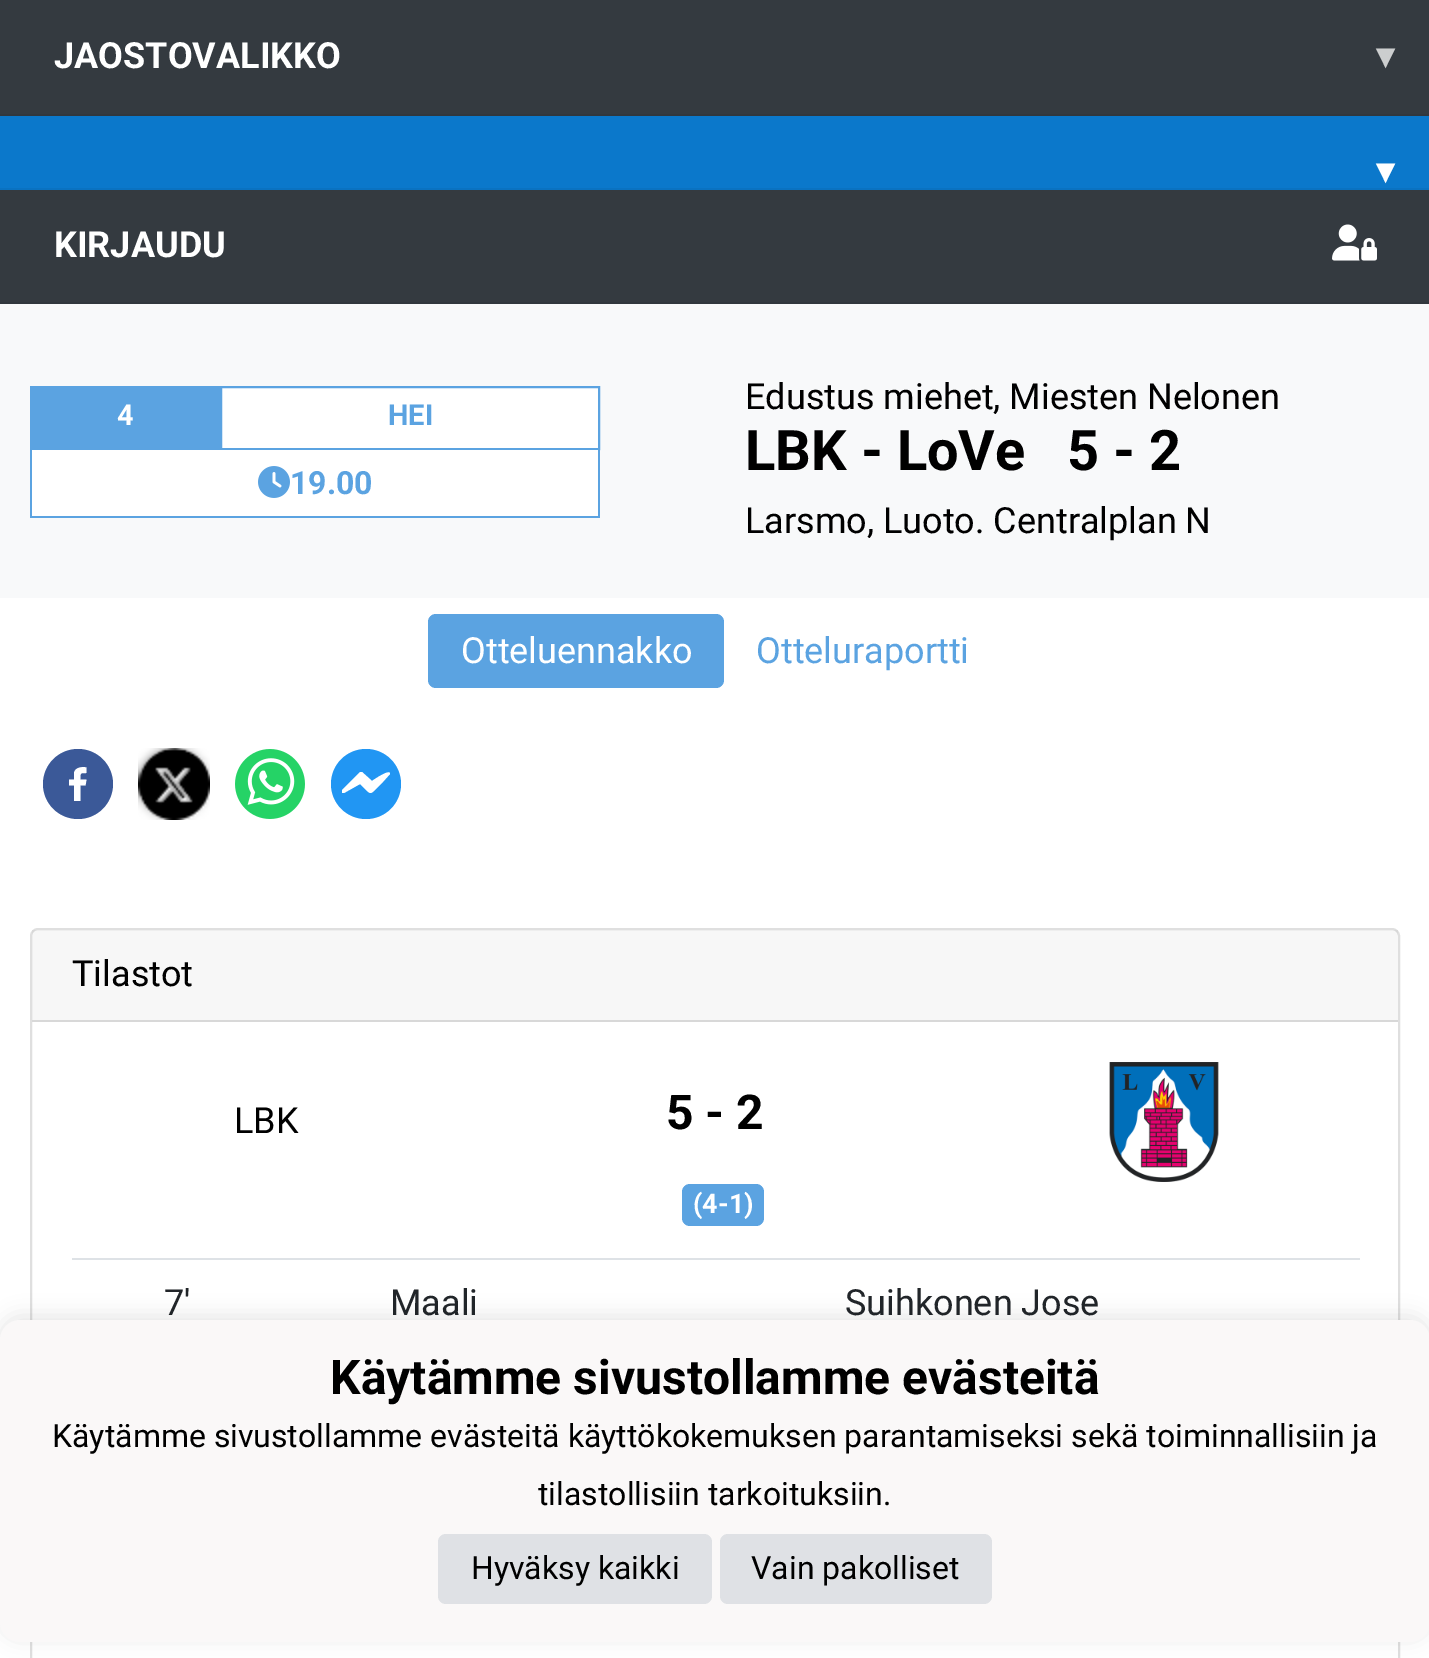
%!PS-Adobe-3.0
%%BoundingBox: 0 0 1429 1658
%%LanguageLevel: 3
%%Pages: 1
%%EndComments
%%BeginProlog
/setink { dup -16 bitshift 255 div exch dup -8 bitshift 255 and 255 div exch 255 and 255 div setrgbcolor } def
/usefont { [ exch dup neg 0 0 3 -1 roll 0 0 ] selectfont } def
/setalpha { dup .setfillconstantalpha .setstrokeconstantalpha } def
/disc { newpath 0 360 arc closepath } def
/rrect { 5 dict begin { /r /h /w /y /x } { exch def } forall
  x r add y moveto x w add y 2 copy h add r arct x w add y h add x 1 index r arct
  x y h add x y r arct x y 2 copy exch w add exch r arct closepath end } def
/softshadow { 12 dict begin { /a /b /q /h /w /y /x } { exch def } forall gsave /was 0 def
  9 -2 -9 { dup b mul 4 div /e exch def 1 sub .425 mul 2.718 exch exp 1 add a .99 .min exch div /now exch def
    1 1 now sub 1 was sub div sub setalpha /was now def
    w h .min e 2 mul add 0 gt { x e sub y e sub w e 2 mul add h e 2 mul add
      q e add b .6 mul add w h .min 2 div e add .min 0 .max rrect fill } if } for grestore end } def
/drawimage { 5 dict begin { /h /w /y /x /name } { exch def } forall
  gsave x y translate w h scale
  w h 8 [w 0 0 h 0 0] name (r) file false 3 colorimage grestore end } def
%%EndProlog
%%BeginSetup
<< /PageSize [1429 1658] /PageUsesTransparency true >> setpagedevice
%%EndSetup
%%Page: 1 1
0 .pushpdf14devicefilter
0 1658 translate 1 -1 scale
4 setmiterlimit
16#FFFFFF setink
0 0 1429 1658 rectfill
16#343A40 setink
0 0 1429 114 rectfill
16#31373D setink
0 114 1429 2 rectfill
/Roboto-Bold 36 usefont
16#FFFFFF setink
54 68 moveto (JAOSTOVALIKKO) show
/DejaVuSans-Bold 36 usefont
16#CCCECF setink
1376 68 moveto (▾) show
16#0B78CB setink
0 116 1429 72 rectfill
16#0A72C1 setink
0 188 1429 2 rectfill
16#FFFFFF setink
1376 183 moveto (▾) show
16#343A40 setink
0 190 1429 112 rectfill
16#31373D setink
0 302 1429 2 rectfill
/Roboto-Bold 36 usefont
16#FFFFFF setink
54 257 moveto (KIRJAUDU) show
(img1.raw) 1332 224 45 37 drawimage
16#F8F9FA setink
0 304 1429 294 rectfill
16#5BA3E1 setink
30 386 190 64 rectfill
/Roboto-Bold 29 usefont
16#FFFFFF setink
117 425 moveto (4) show
221 387 moveto 599 387 lineto 599 449 lineto 221 449 lineto closepath gsave fill grestore
16#5BA3E1 setink
2 setlinewidth
stroke
388 425 moveto (HEI) show
[
    [32 450 566 66 16#FFFFFF]
    [598 450 2 68 16#5BA3E1]
    [30 516 570 2 16#5BA3E1]
    [30 450 2 68 16#5BA3E1]
] { aload pop setink rectfill } forall
(img2.raw) 258 466 32 32 drawimage
/Roboto-Bold 32 usefont
290 494 moveto (19.00) show
/Roboto-Regular 36 usefont
16#000000 setink
745 409 moveto (Edustus miehet, Miesten Nelonen) show
/Roboto-Bold 56 usefont
745 470 moveto (LBK - LoVe) show
1067 470 moveto (5 - 2) show
/Roboto-Regular 36 usefont
745 533 moveto (Larsmo, Luoto. Centralplan N) show
16#5BA3E1 setink
428 614 296 74 8 rrect fill
16#FFFFFF setink
461 663 moveto (Otteluennakko) show
16#5BA3E1 setink
756 663 moveto (Otteluraportti) show
16#3B5998 setink
78 784 35 disc fill
16#FFFFFF setink
80.5 801 moveto 80.5 785.5 lineto 85.5 785.5 lineto 86.5 779.5 lineto 80.5 779.5 lineto 80.5 773 79.5 773 86.5 773 curveto 86.5 767.5 lineto 81.5 766.5 75 767.5 74 773 curveto 74 779.5 lineto 69 779.5 lineto 69 785.5 lineto 74 785.5 lineto 74 801 lineto closepath fill
(img3.raw) 138 748 72 72 drawimage
(img4.raw) 235 749 70 70 drawimage
16#2196F3 setink
366 784 35 disc fill
16#FFFFFF setink
390 773 moveto 388 770 375 779 372 781 curveto 362 772 lineto 362 772 361 772 360 772 curveto 342 790 lineto 342 791 342 792 342 793 curveto 343 793 344 793 344 793 curveto 360 784 lineto 373 796 368 796 381 784 curveto 390 774 lineto closepath fill
16#DFDFDF setink
31 929 1368 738 7 rrect stroke
0.03 setalpha
16#000000 setink
32 930 1366 90 rectfill
1 setalpha
16#D8D8D8 setink
32 1020 1366 2 rectfill
16#000000 setink
72 986 moveto (Tilastot) show
234 1133 moveto (LBK) show
/Roboto-Bold 48 usefont
666 1129 moveto (5 - 2) show
(img5.raw) 1109 1062 110 120 drawimage
16#5BA3E1 setink
682 1184 82 42 8 rrect fill
/Roboto-Bold 27 usefont
16#FFFFFF setink
693 1213 moveto (\(4-1\)) show
/Roboto-Regular 36 usefont
16#212529 setink
164 1315 moveto (7') show
390 1315 moveto (Maali) show
16#DEE2E6 setink
72 1258 1288 2 rectfill
16#212529 setink
845 1315 moveto (Suihkonen Jose) show
16#000000 setink
0 1316 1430 322 20 10 0.1 softshadow
16#FAF8F8 setink
0 1320 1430 322 20 rrect fill
/Roboto-Bold 48 usefont
16#000000 setink
330 1394 moveto (Käytämme sivustollamme evästeitä) show
/Roboto-Regular 32 usefont
52 1447 moveto (Käytämme sivustollamme evästeitä käyttökokemuksen parantamiseksi sekä toiminnallisiin ja) show
538 1505 moveto (tilastollisiin tarkoituksiin.) show
16#DFE1E5 setink
438 1534 274 70 8 rrect fill
16#000000 setink
471 1579 moveto (Hyväksy kaikki) show
16#DFE1E5 setink
720 1534 272 70 8 rrect fill
16#000000 setink
751 1579 moveto (Vain pakolliset) show
.poppdf14devicefilter showpage
%%EOF
